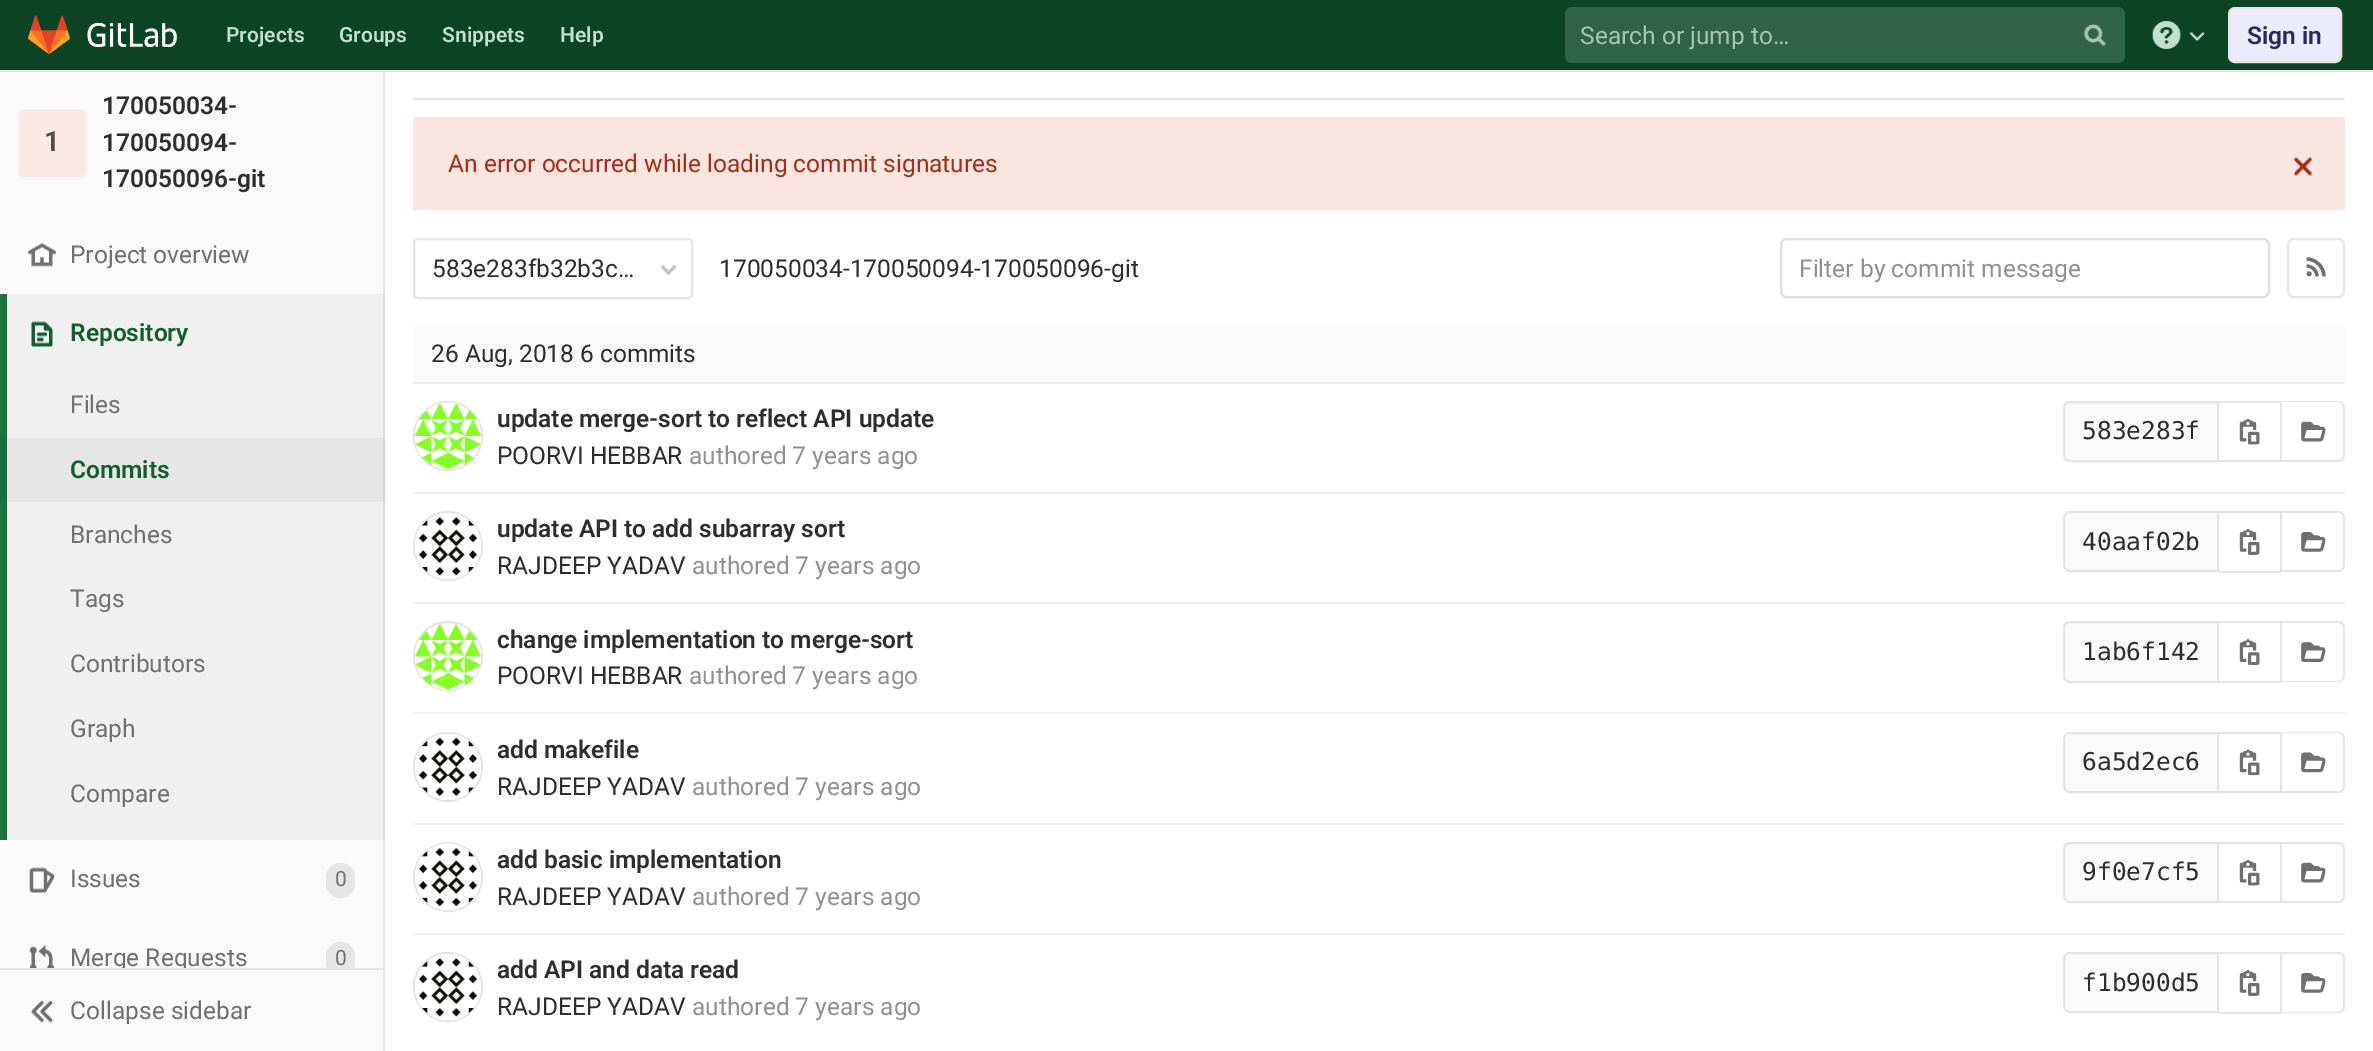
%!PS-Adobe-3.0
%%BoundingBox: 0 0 2373 1051
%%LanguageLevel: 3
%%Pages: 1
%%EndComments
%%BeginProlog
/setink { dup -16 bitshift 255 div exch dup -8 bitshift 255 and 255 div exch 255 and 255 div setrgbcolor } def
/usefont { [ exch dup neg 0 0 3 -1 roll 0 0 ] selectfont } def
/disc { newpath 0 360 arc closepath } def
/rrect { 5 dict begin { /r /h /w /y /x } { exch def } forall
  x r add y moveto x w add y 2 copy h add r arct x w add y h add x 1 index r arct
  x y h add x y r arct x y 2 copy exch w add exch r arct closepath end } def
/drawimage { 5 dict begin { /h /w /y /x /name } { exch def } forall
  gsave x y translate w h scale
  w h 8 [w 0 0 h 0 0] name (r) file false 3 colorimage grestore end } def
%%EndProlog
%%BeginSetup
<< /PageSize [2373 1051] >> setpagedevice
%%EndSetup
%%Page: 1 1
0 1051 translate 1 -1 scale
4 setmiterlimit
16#FFFFFF setink
0 0 2373 1051 rectfill
[
    [0 0 2373 70 16#0D4524]
    [383 70 2 981 16#E5E5E5]
    [0 70 2373 2 16#E5E5E5]
] { aload pop setink rectfill } forall
(img1.raw) 28 15 42 39 drawimage
(img2.raw) 87 23 90 24 drawimage
/Roboto-SemiBold 21 usefont
16#C0DFCD setink
[
    [(Projects) 226 42]
    [(Groups) 339 42]
    [(Snippets) 442 42]
    [(Help) 560 42]
] { aload pop moveto show } forall
16#316446 setink
1565 7 560 56 7 rrect fill
/Roboto-Regular 24.5 usefont
16#A3C6B2 setink
1580 44 moveto (Search or jump to…) show
(img3.raw) 2083 24 23 22 drawimage
(img4.raw) 2152 21 29 28 drawimage
(img5.raw) 2189 32 16 9 drawimage
16#EBEBFA setink
2229 8 112 54 6 rrect gsave fill grestore
16#E5E5E5 setink
2 setlinewidth
stroke
/Roboto-SemiBold 24.5 usefont
16#292961 setink
2247 44 moveto (Sign in) show
[
    [0 72 383 896 16#FAFAFA]
    [7 294 376 546 16#F0F0F0]
    [7 438 376 64 16#E6E6E6]
    [383 294 2 546 16#DCDCDC]
    [383 438 2 64 16#D3D3D3]
] { aload pop setink rectfill } forall
16#F5F5F5 setink
19 110 68 68 6 rrect stroke
16#FBE9E7 setink
19 110 67 67 5 rrect fill
/Roboto-SemiBold 28 usefont
16#4F4F4F setink
44 151 moveto (1) show
/Roboto-SemiBold 24.5 usefont
16#2E2E2E setink
[
    [(170050034-) 102 114]
    [(170050094-) 102 151]
    [(170050096-git) 102 187]
] { aload pop moveto show } forall
(img6.raw) 28 243 28 24 drawimage
/Roboto-Regular 24.5 usefont
16#707070 setink
70 263 moveto (Project overview) show
16#1C7441 setink
0 294 7 546 rectfill
16#1B6F3E setink
0 438 7 64 rectfill
(img7.raw) 31 321 22 26 drawimage
/Roboto-SemiBold 24.5 usefont
16#145D33 setink
70 341 moveto (Repository) show
/Roboto-Regular 24.5 usefont
16#707070 setink
70 413 moveto (Files) show
/Roboto-SemiBold 24.5 usefont
16#145D33 setink
70 478 moveto (Commits) show
/Roboto-Regular 24.5 usefont
16#707070 setink
[
    [(Branches) 70 543]
    [(Tags) 70 607]
    [(Contributors) 70 672]
    [(Graph) 70 737]
    [(Compare) 70 802]
] { aload pop moveto show } forall
(img8.raw) 29 867 26 26 drawimage
70 887 moveto (Issues) show
16#E6E6E6 setink
326 863 29 35 14.5 rrect fill
/Roboto-Regular 21 usefont
16#707070 setink
335 886 moveto (0) show
(img9.raw) 29 944 26 24 drawimage
/Roboto-Regular 24.5 usefont
70 966 moveto (Merge Requests) show
16#E6E6E6 setink
326 942 29 35 14.5 rrect fill
/Roboto-Regular 21 usefont
16#707070 setink
335 965 moveto (0) show
16#FAFAFA setink
0 970 383 81 rectfill
16#E5E5E5 setink
0 968 383 2 rectfill
(img10.raw) 31 1000 22 23 drawimage
/Roboto-Regular 24.5 usefont
16#707070 setink
70 1019 moveto (Collapse sidebar) show
16#E5E5E5 setink
413 98 1932 2 rectfill
16#FBE5E1 setink
413 117 1932 93 rectfill
16#A62D19 setink
448 172 moveto (An error occurred while loading commit signatures) show
(img11.raw) 2294 157 18 19 drawimage
16#E5E5E5 setink
414 239 278 59 4 rrect stroke
16#2E2E2E setink
432 277 moveto (583e283fb32b3c…) show
(img12.raw) 660 265 17 10 drawimage
719 277 moveto (170050034-170050094-170050096-git) show
16#DFDFDF setink
1781 239 488 58 6 rrect stroke
gsave
1799 254 445 28 rectclip
16#919191 setink
1799 277 moveto (Filter by commit message) show
grestore
16#E5E5E5 setink
2288 239 56 58 6 rrect stroke
(img13.raw) 2306 257 20 20 drawimage
16#FAFAFA setink
413 327 1932 55 rectfill
16#EEEEEE setink
413 382 1932 2 rectfill
16#2E2E2E setink
431 362 moveto (26 Aug, 2018 6 commits) show
16#F0F0F0 setink
413 492 1932 2 rectfill
16#E4E4E4 setink
448 436 34 disc stroke
(img14.raw) 414 403 68 67 drawimage
/Roboto-SemiBold 24.5 usefont
16#2E2E2E setink
497 427 moveto (update merge-sort to reflect API update) show
/Roboto-Regular 24.5 usefont
497 464 moveto (POORVI HEBBAR) show
16#919191 setink
689 464 moveto (authored 7 years ago) show
16#FAFAFA setink
2070 402 moveto 2218 402 lineto 2218 461 lineto 2070 461 lineto 2066.5 461 2064 458.5 2064 455 curveto 2064 408 lineto 2064 404.5 2066.5 402 2070 402 curveto closepath gsave fill grestore
16#E5E5E5 setink
stroke
/DejaVuSansMono-Regular 24.5 usefont
16#2E2E2E setink
2082 439 moveto (583e283f) show
[
    [2219 401 63 2 16#E5E5E5]
    [2280 401 2 61 16#E5E5E5]
    [2219 460 63 2 16#E5E5E5]
] { aload pop setink rectfill } forall
(img15.raw) 2239 418 21 27 drawimage
2282 401 moveto 2338 401 lineto 2342 401 2345 404 2345 408 curveto 2345 455 lineto 2345 459 2342 462 2338 462 curveto 2282 462 lineto closepath 2282 402 moveto 2338 402 lineto 2341 402 2343 405 2343 408 curveto 2343 455 lineto 2343 458 2341 460 2338 460 curveto 2282 460 lineto closepath eofill
(img16.raw) 2301 421 25 21 drawimage
16#F0F0F0 setink
413 602 1932 2 rectfill
16#E4E4E4 setink
448 546 34 disc stroke
(img17.raw) 415 513 66 67 drawimage
/Roboto-SemiBold 24.5 usefont
16#2E2E2E setink
497 537 moveto (update API to add subarray sort) show
/Roboto-Regular 24.5 usefont
497 574 moveto (RAJDEEP YADAV) show
16#919191 setink
692 574 moveto (authored 7 years ago) show
16#FAFAFA setink
2070 512 moveto 2218 512 lineto 2218 571 lineto 2070 571 lineto 2066.5 571 2064 568.5 2064 565 curveto 2064 518 lineto 2064 514.5 2066.5 512 2070 512 curveto closepath gsave fill grestore
16#E5E5E5 setink
stroke
/DejaVuSansMono-Regular 24.5 usefont
16#2E2E2E setink
2082 550 moveto (40aaf02b) show
[
    [2219 511 63 2 16#E5E5E5]
    [2280 511 2 61 16#E5E5E5]
    [2219 571 63 2 16#E5E5E5]
] { aload pop setink rectfill } forall
(img18.raw) 2239 529 21 26 drawimage
2282 511 moveto 2338 511 lineto 2342 511 2345 514 2345 518 curveto 2345 565 lineto 2345 569 2342 572 2338 572 curveto 2282 572 lineto closepath 2282 513 moveto 2338 513 lineto 2341 513 2343 515 2343 518 curveto 2343 565 lineto 2343 568 2341 570 2338 570 curveto 2282 570 lineto closepath eofill
(img19.raw) 2301 532 25 20 drawimage
16#F0F0F0 setink
413 712 1932 2 rectfill
16#E4E4E4 setink
448 656 34 disc stroke
(img20.raw) 415 624 66 66 drawimage
/Roboto-SemiBold 24.5 usefont
16#2E2E2E setink
497 648 moveto (change implementation to merge-sort) show
/Roboto-Regular 24.5 usefont
497 684 moveto (POORVI HEBBAR) show
16#919191 setink
689 684 moveto (authored 7 years ago) show
16#FAFAFA setink
2070 622 moveto 2218 622 lineto 2218 682 lineto 2070 682 lineto 2066.5 682 2064 679.5 2064 676 curveto 2064 628 lineto 2064 624.5 2066.5 622 2070 622 curveto closepath gsave fill grestore
16#E5E5E5 setink
stroke
/DejaVuSansMono-Regular 24.5 usefont
16#2E2E2E setink
2082 660 moveto (1ab6f142) show
[
    [2219 621 63 2 16#E5E5E5]
    [2280 621 2 62 16#E5E5E5]
    [2219 681 63 2 16#E5E5E5]
] { aload pop setink rectfill } forall
(img21.raw) 2239 639 21 26 drawimage
2282 621 moveto 2338 621 lineto 2342 621 2345 624 2345 628 curveto 2345 676 lineto 2345 679 2342 682 2338 682 curveto 2282 682 lineto closepath 2282 623 moveto 2338 623 lineto 2341 623 2343 625 2343 628 curveto 2343 676 lineto 2343 678 2341 681 2338 681 curveto 2282 681 lineto closepath eofill
(img22.raw) 2301 642 25 20 drawimage
16#F0F0F0 setink
413 823 1932 2 rectfill
16#E4E4E4 setink
448 767 34 disc stroke
(img23.raw) 415 733 66 67 drawimage
/Roboto-SemiBold 24.5 usefont
16#2E2E2E setink
497 758 moveto (add makefile) show
/Roboto-Regular 24.5 usefont
497 795 moveto (RAJDEEP YADAV) show
16#919191 setink
692 795 moveto (authored 7 years ago) show
16#FAFAFA setink
2070 733 moveto 2218 733 lineto 2218 792 lineto 2070 792 lineto 2066.5 792 2064 789.5 2064 786 curveto 2064 739 lineto 2064 735.5 2066.5 733 2070 733 curveto closepath gsave fill grestore
16#E5E5E5 setink
stroke
/DejaVuSansMono-Regular 24.5 usefont
16#2E2E2E setink
2082 770 moveto (6a5d2ec6) show
[
    [2219 732 63 2 16#E5E5E5]
    [2280 732 2 61 16#E5E5E5]
    [2219 791 63 2 16#E5E5E5]
] { aload pop setink rectfill } forall
(img24.raw) 2239 749 21 27 drawimage
2282 732 moveto 2338 732 lineto 2342 732 2345 735 2345 738 curveto 2345 786 lineto 2345 790 2342 793 2338 793 curveto 2282 793 lineto closepath 2282 733 moveto 2338 733 lineto 2341 733 2343 736 2343 738 curveto 2343 786 lineto 2343 789 2341 791 2338 791 curveto 2282 791 lineto closepath eofill
(img25.raw) 2301 752 25 21 drawimage
16#F0F0F0 setink
413 933 1932 2 rectfill
16#E4E4E4 setink
448 877 34 disc stroke
(img26.raw) 415 844 66 66 drawimage
/Roboto-SemiBold 24.5 usefont
16#2E2E2E setink
497 868 moveto (add basic implementation) show
/Roboto-Regular 24.5 usefont
497 905 moveto (RAJDEEP YADAV) show
16#919191 setink
692 905 moveto (authored 7 years ago) show
16#FAFAFA setink
2070 843 moveto 2218 843 lineto 2218 902 lineto 2070 902 lineto 2066.5 902 2064 899.5 2064 896 curveto 2064 849 lineto 2064 845.5 2066.5 843 2070 843 curveto closepath gsave fill grestore
16#E5E5E5 setink
stroke
/DejaVuSansMono-Regular 24.5 usefont
16#2E2E2E setink
2082 880 moveto (9f0e7cf5) show
[
    [2219 842 63 2 16#E5E5E5]
    [2280 842 2 61 16#E5E5E5]
    [2219 901 63 2 16#E5E5E5]
] { aload pop setink rectfill } forall
(img15.raw) 2239 859 21 27 drawimage
2282 842 moveto 2338 842 lineto 2342 842 2345 845 2345 849 curveto 2345 896 lineto 2345 900 2342 903 2338 903 curveto 2282 903 lineto closepath 2282 844 moveto 2338 844 lineto 2341 844 2343 846 2343 849 curveto 2343 896 lineto 2343 899 2341 901 2338 901 curveto 2282 901 lineto closepath eofill
(img16.raw) 2301 862 25 21 drawimage
16#E4E4E4 setink
448 987 34 disc stroke
(img27.raw) 415 954 66 67 drawimage
/Roboto-SemiBold 24.5 usefont
16#2E2E2E setink
497 978 moveto (add API and data read) show
/Roboto-Regular 24.5 usefont
497 1015 moveto (RAJDEEP YADAV) show
16#919191 setink
692 1015 moveto (authored 7 years ago) show
16#FAFAFA setink
2070 953 moveto 2218 953 lineto 2218 1012 lineto 2070 1012 lineto 2066.5 1012 2064 1009.5 2064 1006 curveto 2064 959 lineto 2064 955.5 2066.5 953 2070 953 curveto closepath gsave fill grestore
16#E5E5E5 setink
stroke
/DejaVuSansMono-Regular 24.5 usefont
16#2E2E2E setink
2082 991 moveto (f1b900d5) show
[
    [2219 952 63 2 16#E5E5E5]
    [2280 952 2 61 16#E5E5E5]
    [2219 1012 63 2 16#E5E5E5]
] { aload pop setink rectfill } forall
(img18.raw) 2239 970 21 26 drawimage
2282 952 moveto 2338 952 lineto 2342 952 2345 955 2345 959 curveto 2345 1006 lineto 2345 1010 2342 1013 2338 1013 curveto 2282 1013 lineto closepath 2282 954 moveto 2338 954 lineto 2341 954 2343 956 2343 959 curveto 2343 1006 lineto 2343 1009 2341 1012 2338 1012 curveto 2282 1012 lineto closepath eofill
(img19.raw) 2301 973 25 20 drawimage
showpage
%%EOF
